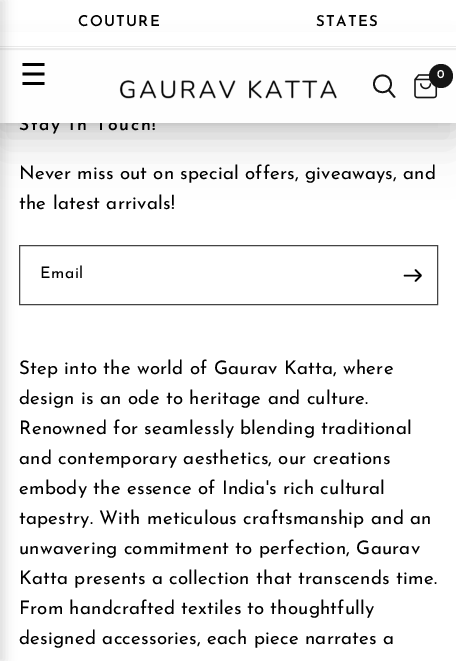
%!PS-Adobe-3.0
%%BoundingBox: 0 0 456 661
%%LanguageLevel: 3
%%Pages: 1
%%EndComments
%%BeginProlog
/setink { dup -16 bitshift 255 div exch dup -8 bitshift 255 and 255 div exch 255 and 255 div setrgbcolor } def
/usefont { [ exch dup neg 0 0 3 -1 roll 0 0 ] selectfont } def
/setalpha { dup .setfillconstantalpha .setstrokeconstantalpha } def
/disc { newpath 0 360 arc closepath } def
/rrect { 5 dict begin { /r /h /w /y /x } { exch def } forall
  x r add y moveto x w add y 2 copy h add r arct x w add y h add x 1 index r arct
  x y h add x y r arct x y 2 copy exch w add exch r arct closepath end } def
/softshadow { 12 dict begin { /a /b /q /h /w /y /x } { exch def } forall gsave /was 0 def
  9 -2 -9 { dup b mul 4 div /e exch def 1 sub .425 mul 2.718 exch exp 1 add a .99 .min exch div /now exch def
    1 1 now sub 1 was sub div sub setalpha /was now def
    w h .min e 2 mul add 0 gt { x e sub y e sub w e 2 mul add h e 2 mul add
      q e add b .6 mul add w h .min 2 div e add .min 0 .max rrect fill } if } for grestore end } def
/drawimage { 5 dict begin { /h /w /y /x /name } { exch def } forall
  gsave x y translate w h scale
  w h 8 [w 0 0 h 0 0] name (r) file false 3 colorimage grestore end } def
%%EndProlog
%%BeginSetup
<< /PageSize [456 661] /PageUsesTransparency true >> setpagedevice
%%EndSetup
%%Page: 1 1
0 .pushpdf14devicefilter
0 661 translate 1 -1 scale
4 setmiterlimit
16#FFFFFF setink
0 0 456 661 rectfill
16#000000 setink
0 53 456 72 0 4 0.05 softshadow
/JosefinSans-SemiBold 17.5 usefont
19 130 moveto 1.75 0 (Stay In Touch!) ashow
16#FEFEFE setink
0 51 456 72 rectfill
gsave
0 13 moveto 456 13 lineto 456 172 lineto 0 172 lineto closepath 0 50 moveto 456 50 lineto 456 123 lineto 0 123 lineto closepath eoclip newpath
16#000000 setink
0 56 456 73 0 14 0.15 softshadow
grestore
gsave
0 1 moveto 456 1 lineto 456 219 lineto 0 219 lineto closepath 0 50 moveto 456 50 lineto 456 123 lineto 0 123 lineto closepath eoclip newpath
16#000000 setink
0 74 456 72 0 24 0.1 softshadow
grestore
16#FFFFFF setink
0 32 456 16 rectfill
16#EAEAEA setink
0 46 456 1 rectfill
16#444444 setink
19.5 245.5 418 59 rectstroke
16#000000 setink
-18 0 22 661 0 6 0.15 softshadow
/DejaVuSans-Regular 30 usefont
20 85 moveto (☰) show
/JosefinSans-SemiBold 15 usefont
78 26 moveto 1.25 0 (COUTURE) ashow
316 26 moveto 1.25 0 (STATES) ashow
16#151515 setink
1.8 setlinewidth
1 setlinecap
1 setlinejoin
389 90.5 moveto 394.5 97 lineto 391 84 moveto 391 95 374 95 374 84 curveto 374 72.5 391 72.5 391 84 curveto closepath stroke
(img1.raw) 414 74 24 25 drawimage
441 76 12 disc fill
/JosefinSans-SemiBold 12 usefont
16#FEFEFE setink
437 78 moveto 0.2 0 (0) ashow
(img2.raw) 119 80 218 19 drawimage
/JosefinSans-Regular 18.75 usefont
16#000000 setink
19 179 moveto -0.25 0 32 0.2 0 (Never miss out on special offers, giveaways, and) awidthshow
19 209 moveto 0.2 0 (the latest arrivals!) ashow
/JosefinSans-Regular 16 usefont
40 278 moveto 0.5 0 (Email) ashow
1.5 setlinewidth
404.5 275.5 moveto 419.5 275.5 lineto 415.5 270 moveto 421 275.5 lineto 415.5 281 lineto stroke
/JosefinSans-Regular 18.75 usefont
19 374 moveto 0.2 0 (Step into the world of Gaurav Katta, where) ashow
19 404 moveto 0.2 0 (design is an ode to heritage and culture.) ashow
19 434 moveto 0.2 0 (Renowned for seamlessly blending traditional) ashow
19 464 moveto 0.2 0 (and contemporary aesthetics, our creations) ashow
19 494 moveto 0.2 0 (embody the essence of India's rich cultural) ashow
19 524 moveto 0.2 0 (tapestry. With meticulous craftsmanship and an) ashow
19 554 moveto 0.2 0 (unwavering commitment to perfection, Gaurav) ashow
19 584 moveto 0.2 0 (Katta presents a collection that transcends time.) ashow
19 614 moveto -0.5 0 32 0.2 0 (From handcrafted textiles to thoughtfully) awidthshow
19 644 moveto 0.2 0 (designed accessories, each piece narrates a) ashow
.poppdf14devicefilter showpage
%%EOF
